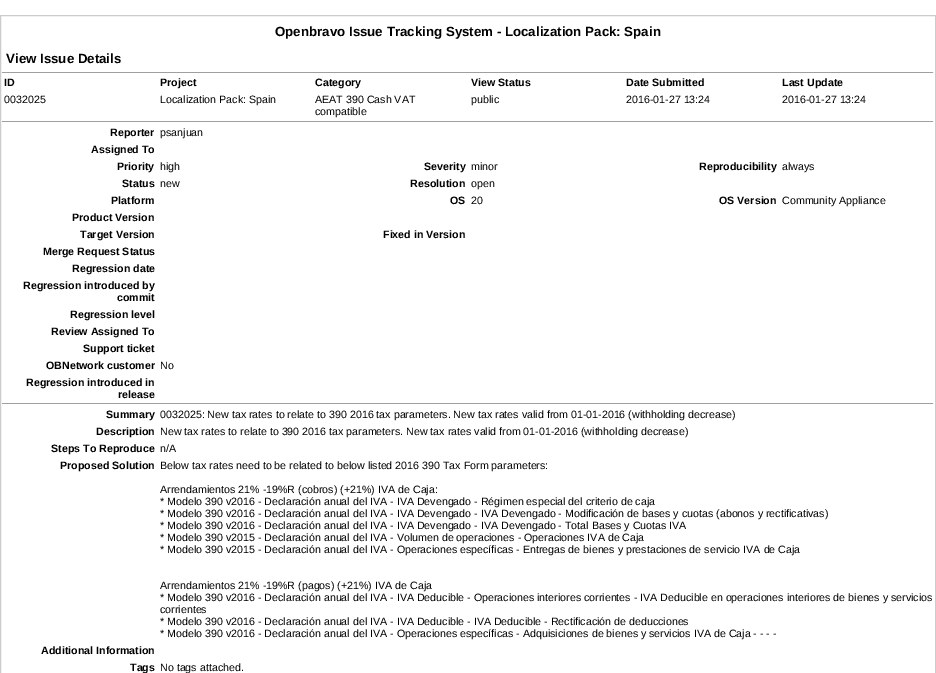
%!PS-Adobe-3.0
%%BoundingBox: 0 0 936 673
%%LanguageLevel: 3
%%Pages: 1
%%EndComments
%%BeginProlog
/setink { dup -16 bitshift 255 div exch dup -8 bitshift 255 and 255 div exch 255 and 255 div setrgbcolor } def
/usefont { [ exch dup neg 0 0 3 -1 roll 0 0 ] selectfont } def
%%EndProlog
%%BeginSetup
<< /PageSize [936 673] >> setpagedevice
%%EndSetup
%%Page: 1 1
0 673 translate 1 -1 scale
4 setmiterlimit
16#FFFFFF setink
0 0 936 673 rectfill
16#CCCCCC setink
0.5 15.5 935 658 rectstroke
/LiberationSans-Bold 13.3 usefont
16#000000 setink
275 36 moveto (Openbravo Issue Tracking System - Localization Pack: Spain) show
6 63 moveto (View Issue Details) show
16#9F9F9F setink
2 72 932 1 rectfill
16#EEEEEE setink
933 72 1 1 rectfill
/LiberationSans-Bold 10.67 usefont
16#000000 setink
[
    [(ID) 4 86]
    [(Project) 160 86]
    [(Category) 315 86]
    [(View Status) 471 86]
    [(Date Submitted) 626 86]
    [(Last Update) 782 86]
] { aload pop moveto show } forall
/LiberationSans-Regular 10.67 usefont
[
    [(0032025) 4 103]
    [(Localization Pack: Spain) 160 103]
    [(AEAT 390 Cash VAT) 315 103]
    [(compatible) 315 115]
    [(public) 471 103]
    [(2016-01-27 13:24) 626 103]
    [(2016-01-27 13:24) 782 103]
] { aload pop moveto show } forall
16#9F9F9F setink
2 121 932 1 rectfill
16#EEEEEE setink
933 121 1 1 rectfill
/LiberationSans-Bold 10.67 usefont
16#000000 setink
110 136 moveto (Reporter) show
/LiberationSans-Regular 10.67 usefont
160 136 moveto (psanjuan) show
/LiberationSans-Bold 10.67 usefont
91 153 moveto (Assigned To) show
117 170 moveto (Priority) show
/LiberationSans-Regular 10.67 usefont
160 170 moveto (high) show
/LiberationSans-Bold 10.67 usefont
424 170 moveto (Severity) show
/LiberationSans-Regular 10.67 usefont
471 170 moveto (minor) show
/LiberationSans-Bold 10.67 usefont
699 170 moveto (Reproducibility) show
/LiberationSans-Regular 10.67 usefont
782 170 moveto (always) show
/LiberationSans-Bold 10.67 usefont
122 187 moveto (Status) show
/LiberationSans-Regular 10.67 usefont
160 187 moveto (new) show
/LiberationSans-Bold 10.67 usefont
410 187 moveto (Resolution) show
/LiberationSans-Regular 10.67 usefont
471 187 moveto (open) show
/LiberationSans-Bold 10.67 usefont
111 204 moveto (Platform) show
450 204 moveto (OS) show
/LiberationSans-Regular 10.67 usefont
471 204 moveto (20) show
/LiberationSans-Bold 10.67 usefont
719 204 moveto (OS Version) show
/LiberationSans-Regular 10.67 usefont
782 204 moveto (Community Appliance) show
/LiberationSans-Bold 10.67 usefont
[
    [(Product Version) 72 221]
    [(Target Version) 80 238]
    [(Fixed in Version) 383 238]
    [(Merge Request Status) 43 255]
    [(Regression date) 72 272]
    [(Regression introduced by) 23 289]
    [(commit) 117 301]
    [(Regression level) 70 318]
    [(Review Assigned To) 51 335]
    [(Support ticket) 83 352]
    [(OBNetwork customer) 46 369]
] { aload pop moveto show } forall
/LiberationSans-Regular 10.67 usefont
160 369 moveto (No) show
/LiberationSans-Bold 10.67 usefont
26 386 moveto (Regression introduced in) show
118 398 moveto (release) show
16#9F9F9F setink
2 403 932 1 rectfill
16#EEEEEE setink
933 403 1 1 rectfill
16#000000 setink
106 418 moveto (Summary) show
/LiberationSans-Regular 10.67 usefont
160 418 moveto (0032025: New tax rates to relate to 390 2016 tax parameters. New tax rates valid from 01-01-2016 \(withholding decrease\)) show
/LiberationSans-Bold 10.67 usefont
96 435 moveto (Description) show
/LiberationSans-Regular 10.67 usefont
160 435 moveto (New tax rates to relate to 390 2016 tax parameters. New tax rates valid from 01-01-2016 \(withholding decrease\)) show
/LiberationSans-Bold 10.67 usefont
51 452 moveto (Steps To Reproduce) show
/LiberationSans-Regular 10.67 usefont
160 452 moveto (n/A) show
/LiberationSans-Bold 10.67 usefont
60 469 moveto (Proposed Solution) show
/LiberationSans-Regular 10.67 usefont
[
    [(Below tax rates need to be related to below listed 2016 390 Tax Form parameters:) 160 469]
    [(Arrendamientos 21% -19%R \(cobros\) \(+21%\) IVA de Caja:) 160 493]
    [(* Modelo 390 v2016 - Declaración anual del IVA - IVA Devengado - Régimen especial del criterio de caja) 160 505]
    [(* Modelo 390 v2016 - Declaración anual del IVA - IVA Devengado - IVA Devengado - Modificación de bases y cuotas \(abonos y rectificativas\)) 160 517]
    [(* Modelo 390 v2016 - Declaración anual del IVA - IVA Devengado - IVA Devengado - Total Bases y Cuotas IVA) 160 529]
    [(* Modelo 390 v2015 - Declaración anual del IVA - Volumen de operaciones - Operaciones IVA de Caja) 160 541]
    [(* Modelo 390 v2015 - Declaración anual del IVA - Operaciones específicas - Entregas de bienes y prestaciones de servicio IVA de Caja) 160 553]
    [(Arrendamientos 21% -19%R \(pagos\) \(+21%\) IVA de Caja) 160 589]
    [(* Modelo 390 v2016 - Declaración anual del IVA - IVA Deducible - Operaciones interiores corrientes - IVA Deducible en operaciones interiores de bienes y servicios) 160 601]
    [(corrientes) 160 613]
    [(* Modelo 390 v2016 - Declaración anual del IVA - IVA Deducible - IVA Deducible - Rectificación de deducciones) 160 625]
    [(* Modelo 390 v2016 - Declaración anual del IVA - Operaciones específicas - Adquisiciones de bienes y servicios IVA de Caja - - - -) 160 637]
] { aload pop moveto show } forall
/LiberationSans-Bold 10.67 usefont
41 654 moveto (Additional Information) show
130 671 moveto (Tags) show
/LiberationSans-Regular 10.67 usefont
160 671 moveto (No tags attached.) show
showpage
%%EOF
